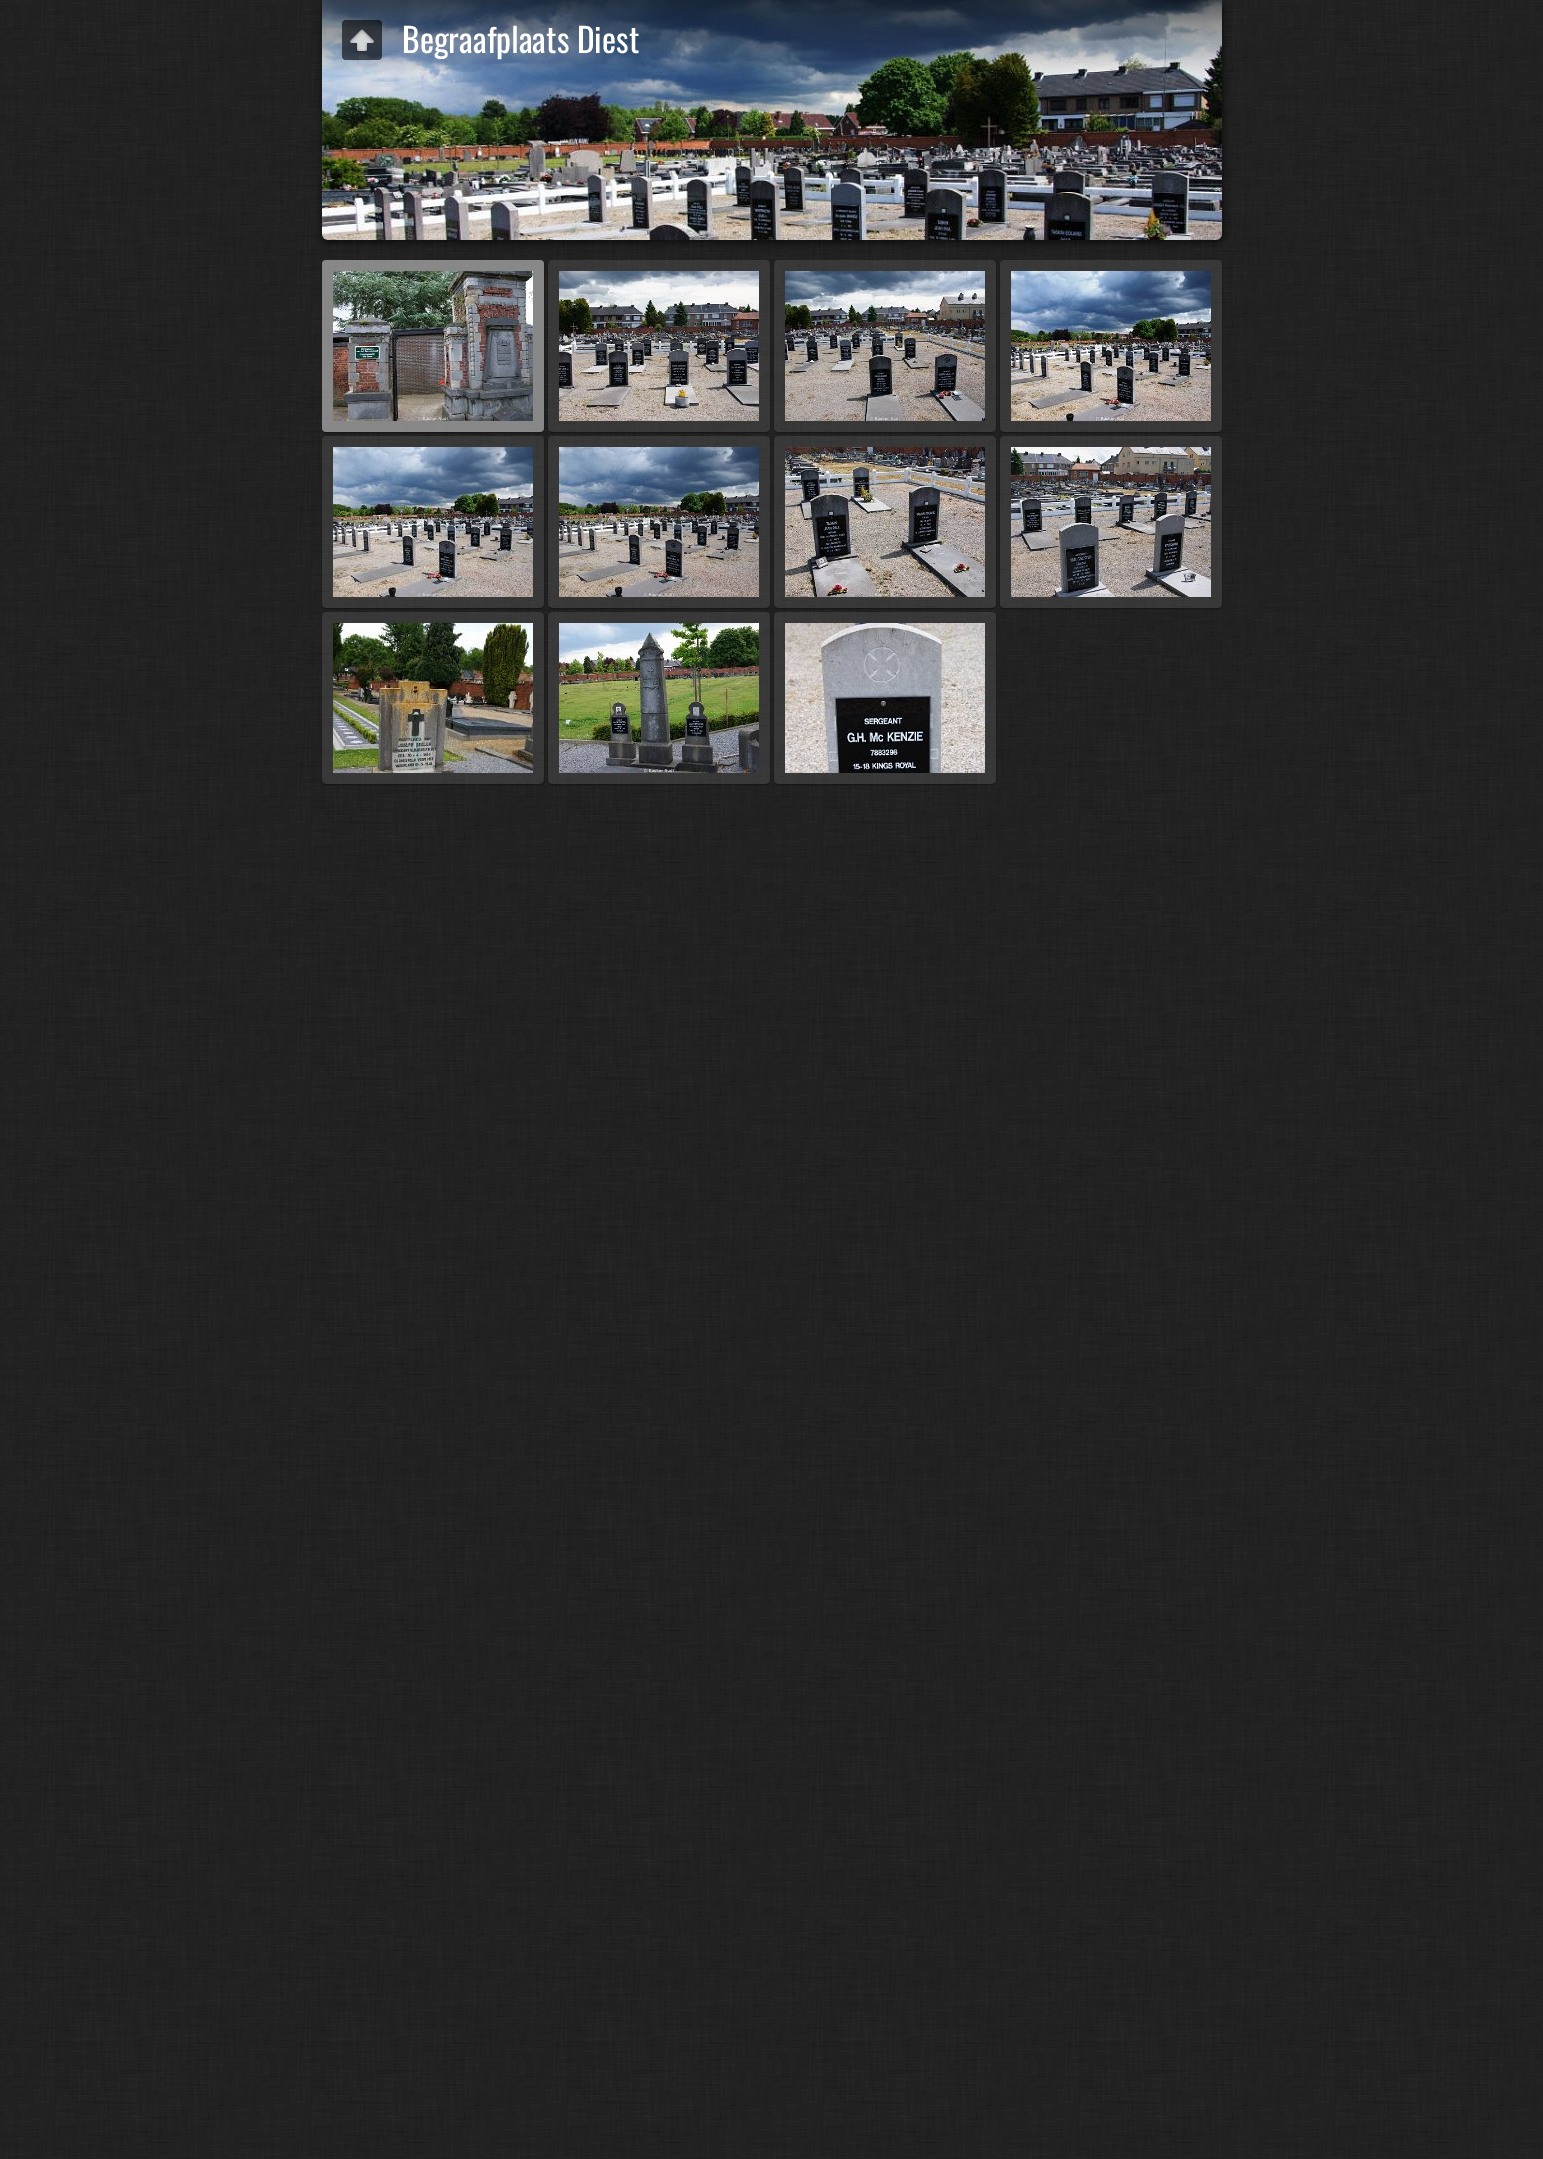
%!PS-Adobe-3.0
%%BoundingBox: 0 0 1543 2159
%%LanguageLevel: 3
%%Pages: 1
%%EndComments
%%BeginProlog
/setink { dup -16 bitshift 255 div exch dup -8 bitshift 255 and 255 div exch 255 and 255 div setrgbcolor } def
/usefont { [ exch dup neg 0 0 3 -1 roll 0 0 ] selectfont } def
/setalpha { dup .setfillconstantalpha .setstrokeconstantalpha } def
/rrect { 5 dict begin { /r /h /w /y /x } { exch def } forall
  x r add y moveto x w add y 2 copy h add r arct x w add y h add x 1 index r arct
  x y h add x y r arct x y 2 copy exch w add exch r arct closepath end } def
/softshadow { 12 dict begin { /a /b /q /h /w /y /x } { exch def } forall gsave /was 0 def
  9 -2 -9 { dup b mul 4 div /e exch def 1 sub .425 mul 2.718 exch exp 1 add a .99 .min exch div /now exch def
    1 1 now sub 1 was sub div sub setalpha /was now def
    w h .min e 2 mul add 0 gt { x e sub y e sub w e 2 mul add h e 2 mul add
      q e add b .6 mul add w h .min 2 div e add .min 0 .max rrect fill } if } for grestore end } def
/drawimage { 5 dict begin { /h /w /y /x /name } { exch def } forall
  gsave x y translate w h scale
  w h 8 [w 0 0 h 0 0] name (r) file false 3 colorimage grestore end } def
%%EndProlog
%%BeginSetup
<< /PageSize [1543 2159] /PageUsesTransparency true >> setpagedevice
%%EndSetup
%%Page: 1 1
0 .pushpdf14devicefilter
0 2159 translate 1 -1 scale
4 setmiterlimit
16#222222 setink
0 0 1543 2159 rectfill
(img1.raw) 0 0 1543 2159 drawimage
16#000000 setink
323 3 900 240 6 4 0.6 softshadow
(img2.raw) 322 0 900 240 drawimage
0.6 setalpha
342 20 40 40 4 rrect fill
1 setalpha
(img3.raw) 350 29 24 22 drawimage
/Oswald-Regular 33.5 usefont
16#FFFFFF setink
402 53 moveto (Begraafplaats Diest) show
gsave
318 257 moveto 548 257 lineto 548 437 lineto 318 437 lineto closepath 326 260 moveto 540 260 lineto 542 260 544 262 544 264 curveto 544 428 lineto 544 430 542 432 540 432 curveto 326 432 lineto 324 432 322 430 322 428 curveto 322 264 lineto 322 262 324 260 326 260 curveto closepath eoclip newpath
16#000000 setink
322 261 222 172 4 1 0.4 softshadow
grestore
0.1 setalpha
322 260 222 172 4 rrect fill
0.4 setalpha
322 260 222 172 4 rrect fill
1 setalpha
(img4.raw) 333 271 200 150 drawimage
gsave
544 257 moveto 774 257 lineto 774 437 lineto 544 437 lineto closepath 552 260 moveto 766 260 lineto 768 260 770 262 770 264 curveto 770 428 lineto 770 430 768 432 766 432 curveto 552 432 lineto 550 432 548 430 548 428 curveto 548 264 lineto 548 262 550 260 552 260 curveto closepath eoclip newpath
16#000000 setink
548 261 222 172 4 1 0.4 softshadow
grestore
0.1 setalpha
548 260 222 172 4 rrect fill
1 setalpha
(img5.raw) 559 271 200 150 drawimage
gsave
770 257 moveto 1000 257 lineto 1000 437 lineto 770 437 lineto closepath 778 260 moveto 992 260 lineto 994 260 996 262 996 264 curveto 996 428 lineto 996 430 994 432 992 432 curveto 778 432 lineto 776 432 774 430 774 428 curveto 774 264 lineto 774 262 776 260 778 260 curveto closepath eoclip newpath
16#000000 setink
774 261 222 172 4 1 0.4 softshadow
grestore
0.1 setalpha
774 260 222 172 4 rrect fill
1 setalpha
(img6.raw) 785 271 200 150 drawimage
gsave
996 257 moveto 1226 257 lineto 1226 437 lineto 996 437 lineto closepath 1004 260 moveto 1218 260 lineto 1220 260 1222 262 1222 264 curveto 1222 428 lineto 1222 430 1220 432 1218 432 curveto 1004 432 lineto 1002 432 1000 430 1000 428 curveto 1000 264 lineto 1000 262 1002 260 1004 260 curveto closepath eoclip newpath
16#000000 setink
1000 261 222 172 4 1 0.4 softshadow
grestore
0.1 setalpha
1000 260 222 172 4 rrect fill
1 setalpha
(img7.raw) 1011 271 200 150 drawimage
gsave
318 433 moveto 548 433 lineto 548 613 lineto 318 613 lineto closepath 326 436 moveto 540 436 lineto 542 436 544 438 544 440 curveto 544 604 lineto 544 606 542 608 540 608 curveto 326 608 lineto 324 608 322 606 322 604 curveto 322 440 lineto 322 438 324 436 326 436 curveto closepath eoclip newpath
16#000000 setink
322 437 222 172 4 1 0.4 softshadow
grestore
0.1 setalpha
322 436 222 172 4 rrect fill
1 setalpha
(img8.raw) 333 447 200 150 drawimage
gsave
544 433 moveto 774 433 lineto 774 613 lineto 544 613 lineto closepath 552 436 moveto 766 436 lineto 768 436 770 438 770 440 curveto 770 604 lineto 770 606 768 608 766 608 curveto 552 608 lineto 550 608 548 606 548 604 curveto 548 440 lineto 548 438 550 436 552 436 curveto closepath eoclip newpath
16#000000 setink
548 437 222 172 4 1 0.4 softshadow
grestore
0.1 setalpha
548 436 222 172 4 rrect fill
1 setalpha
(img9.raw) 559 447 200 150 drawimage
gsave
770 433 moveto 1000 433 lineto 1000 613 lineto 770 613 lineto closepath 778 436 moveto 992 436 lineto 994 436 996 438 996 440 curveto 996 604 lineto 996 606 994 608 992 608 curveto 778 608 lineto 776 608 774 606 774 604 curveto 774 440 lineto 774 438 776 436 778 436 curveto closepath eoclip newpath
16#000000 setink
774 437 222 172 4 1 0.4 softshadow
grestore
0.1 setalpha
774 436 222 172 4 rrect fill
1 setalpha
(img10.raw) 785 447 200 150 drawimage
gsave
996 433 moveto 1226 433 lineto 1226 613 lineto 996 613 lineto closepath 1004 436 moveto 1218 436 lineto 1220 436 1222 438 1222 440 curveto 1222 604 lineto 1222 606 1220 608 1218 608 curveto 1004 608 lineto 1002 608 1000 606 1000 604 curveto 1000 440 lineto 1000 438 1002 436 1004 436 curveto closepath eoclip newpath
16#000000 setink
1000 437 222 172 4 1 0.4 softshadow
grestore
0.1 setalpha
1000 436 222 172 4 rrect fill
1 setalpha
(img11.raw) 1011 447 200 150 drawimage
gsave
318 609 moveto 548 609 lineto 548 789 lineto 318 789 lineto closepath 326 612 moveto 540 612 lineto 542 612 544 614 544 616 curveto 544 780 lineto 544 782 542 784 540 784 curveto 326 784 lineto 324 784 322 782 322 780 curveto 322 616 lineto 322 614 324 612 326 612 curveto closepath eoclip newpath
16#000000 setink
322 613 222 172 4 1 0.4 softshadow
grestore
0.1 setalpha
322 612 222 172 4 rrect fill
1 setalpha
(img12.raw) 333 623 200 150 drawimage
gsave
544 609 moveto 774 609 lineto 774 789 lineto 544 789 lineto closepath 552 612 moveto 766 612 lineto 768 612 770 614 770 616 curveto 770 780 lineto 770 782 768 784 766 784 curveto 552 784 lineto 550 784 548 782 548 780 curveto 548 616 lineto 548 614 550 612 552 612 curveto closepath eoclip newpath
16#000000 setink
548 613 222 172 4 1 0.4 softshadow
grestore
0.1 setalpha
548 612 222 172 4 rrect fill
1 setalpha
(img13.raw) 559 623 200 150 drawimage
gsave
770 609 moveto 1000 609 lineto 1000 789 lineto 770 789 lineto closepath 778 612 moveto 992 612 lineto 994 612 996 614 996 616 curveto 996 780 lineto 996 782 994 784 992 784 curveto 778 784 lineto 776 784 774 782 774 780 curveto 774 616 lineto 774 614 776 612 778 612 curveto closepath eoclip newpath
16#000000 setink
774 613 222 172 4 1 0.4 softshadow
grestore
0.1 setalpha
774 612 222 172 4 rrect fill
1 setalpha
(img14.raw) 785 623 200 150 drawimage
.poppdf14devicefilter showpage
%%EOF
